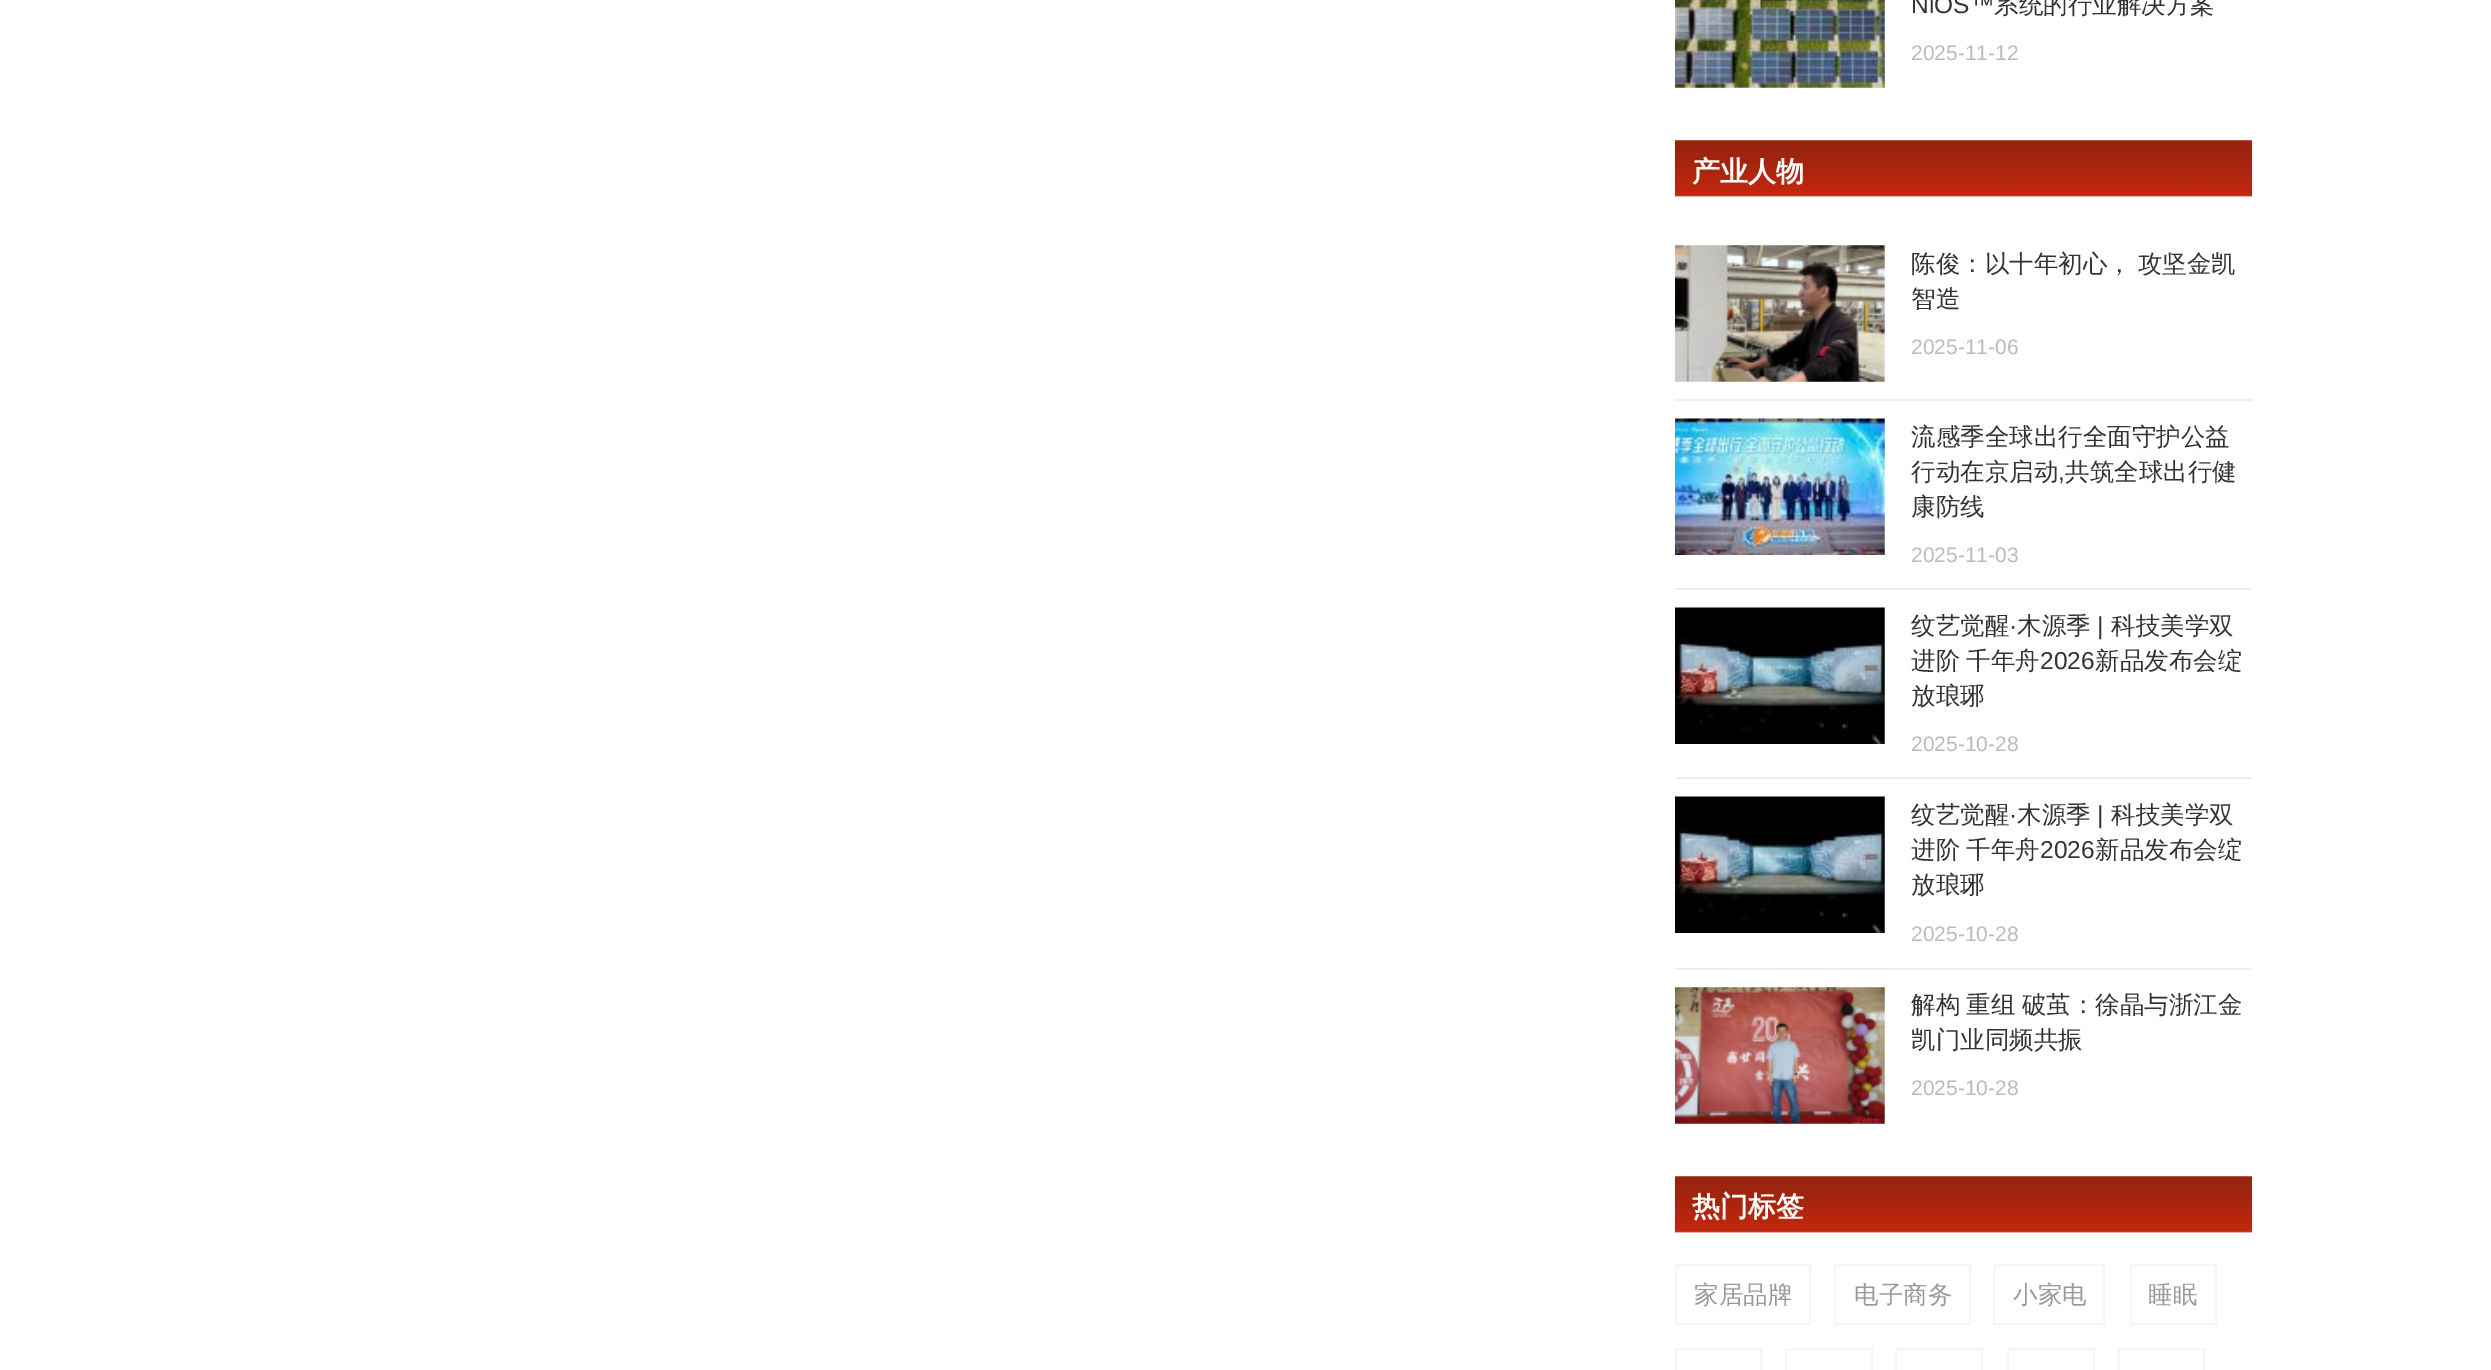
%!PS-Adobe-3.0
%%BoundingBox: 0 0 2491 1370
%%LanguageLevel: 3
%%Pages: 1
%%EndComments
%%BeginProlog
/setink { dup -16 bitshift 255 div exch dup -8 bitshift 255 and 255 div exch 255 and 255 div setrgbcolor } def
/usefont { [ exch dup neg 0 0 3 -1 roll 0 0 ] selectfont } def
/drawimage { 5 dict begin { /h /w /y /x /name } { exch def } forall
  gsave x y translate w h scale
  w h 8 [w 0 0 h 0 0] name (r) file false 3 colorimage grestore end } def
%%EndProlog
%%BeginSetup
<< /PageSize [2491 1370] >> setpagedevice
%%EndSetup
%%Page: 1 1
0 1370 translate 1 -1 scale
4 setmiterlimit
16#FFFFFF setink
0 0 2491 1370 rectfill
(img1.raw) 1675 0 210 88 drawimage
/LiberationSans-Regular 24.5 usefont
16#333333 setink
1911 13 moveto (NiOS™) show
/WenQuanYiZenHei-Medium 24.5 usefont
1994 13 moveto (系统的行业解决方案) show
/LiberationSans-Regular 21 usefont
16#BBBBBB setink
1911 60 moveto (2025-11-12) show
(img2.raw) 1674 140 579 57 drawimage
/WenQuanYiZenHei-Bold 28 usefont
16#FFFFFF setink
1692 181 moveto (产业人物) show
16#EEEEEE setink
1675 399 577 2 rectfill
(img3.raw) 1675 245 210 137 drawimage
/WenQuanYiZenHei-Medium 24.5 usefont
16#333333 setink
1911 272 moveto -1 0 32 (陈俊：以十年初心， 攻坚金凯) widthshow
1911 307 moveto (智造) show
/LiberationSans-Regular 21 usefont
16#BBBBBB setink
1911 354 moveto (2025-11-06) show
16#EEEEEE setink
1675 588 577 2 rectfill
(img4.raw) 1675 418 210 137 drawimage
/WenQuanYiZenHei-Medium 24.5 usefont
16#333333 setink
1911 445 moveto (流感季全球出行全面守护公益) show
1911 480 moveto (行动在京启动) show
/LiberationSans-Regular 24.5 usefont
2058 480 moveto (,) show
/WenQuanYiZenHei-Medium 24.5 usefont
2065 480 moveto (共筑全球出行健) show
1911 515 moveto (康防线) show
/LiberationSans-Regular 21 usefont
16#BBBBBB setink
1911 562 moveto (2025-11-03) show
16#EEEEEE setink
1675 777 577 2 rectfill
(img5.raw) 1675 607 210 137 drawimage
/WenQuanYiZenHei-Medium 24.5 usefont
16#333333 setink
1911 634 moveto (纹艺觉醒) show
/LiberationSans-Regular 24.5 usefont
2009 634 moveto (·) show
/WenQuanYiZenHei-Medium 24.5 usefont
2017 634 moveto (木源季) show
/LiberationSans-Regular 24.5 usefont
2097 634 moveto (|) show
/WenQuanYiZenHei-Medium 24.5 usefont
2111 634 moveto (科技美学双) show
1911 669 moveto -1 0 32 (进阶 千年舟) widthshow
/LiberationSans-Regular 24.5 usefont
2040 669 moveto (2026) show
/WenQuanYiZenHei-Medium 24.5 usefont
2095 669 moveto (新品发布会绽) show
1911 704 moveto (放琅琊) show
/LiberationSans-Regular 21 usefont
16#BBBBBB setink
1911 751 moveto (2025-10-28) show
16#EEEEEE setink
1675 968 577 2 rectfill
(img6.raw) 1675 796 210 137 drawimage
/WenQuanYiZenHei-Medium 24.5 usefont
16#333333 setink
1911 823 moveto (纹艺觉醒) show
/LiberationSans-Regular 24.5 usefont
2009 823 moveto (·) show
/WenQuanYiZenHei-Medium 24.5 usefont
2017 823 moveto (木源季) show
/LiberationSans-Regular 24.5 usefont
2097 823 moveto (|) show
/WenQuanYiZenHei-Medium 24.5 usefont
2111 823 moveto (科技美学双) show
1911 858 moveto -1 0 32 (进阶 千年舟) widthshow
/LiberationSans-Regular 24.5 usefont
2040 858 moveto (2026) show
/WenQuanYiZenHei-Medium 24.5 usefont
2095 858 moveto (新品发布会绽) show
1911 893 moveto (放琅琊) show
/LiberationSans-Regular 21 usefont
16#BBBBBB setink
1911 941 moveto (2025-10-28) show
(img7.raw) 1675 987 210 137 drawimage
/WenQuanYiZenHei-Medium 24.5 usefont
16#333333 setink
1911 1013 moveto -1 0 32 (解构 重组 破茧：徐晶与浙江金) widthshow
1911 1048 moveto (凯门业同频共振) show
/LiberationSans-Regular 21 usefont
16#BBBBBB setink
1911 1095 moveto (2025-10-28) show
(img8.raw) 1674 1176 579 57 drawimage
/WenQuanYiZenHei-Bold 28 usefont
16#FFFFFF setink
1692 1216 moveto (热门标签) show
16#F6F6F6 setink
2 setlinewidth
1676 1265 134 59 rectstroke
/WenQuanYiZenHei-Medium 24.5 usefont
16#999999 setink
1694 1303 moveto (家居品牌) show
16#F6F6F6 setink
1835 1265 135 59 rectstroke
16#999999 setink
1854 1303 moveto (电子商务) show
16#F6F6F6 setink
1994 1265 110 59 rectstroke
16#999999 setink
2013 1303 moveto (小家电) show
16#F6F6F6 setink
2131 1265 85 59 rectstroke
16#999999 setink
2148 1303 moveto (睡眠) show
16#F6F6F6 setink
1676 1349 85 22 rectstroke
1786 1349 86 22 rectstroke
1896 1349 86 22 rectstroke
2008 1349 86 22 rectstroke
2119 1349 85 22 rectstroke
showpage
%%EOF
